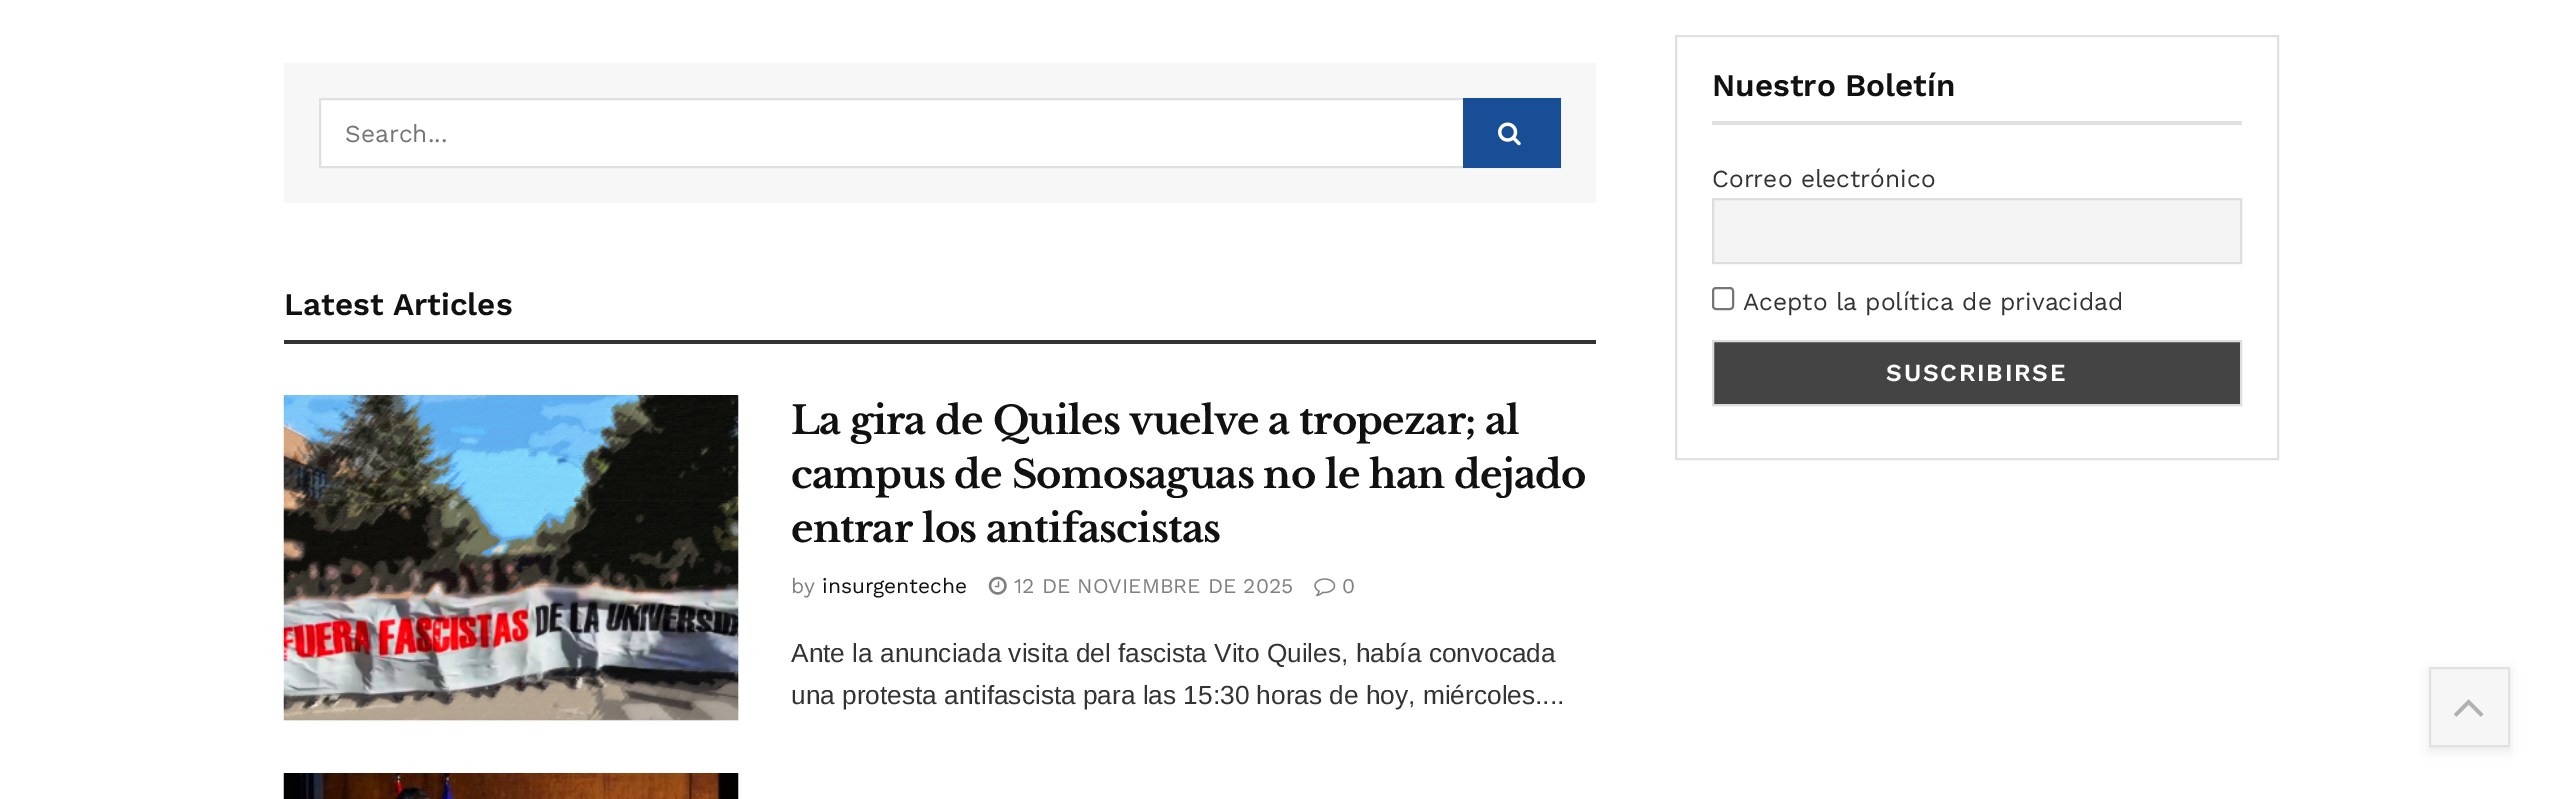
%!PS-Adobe-3.0
%%BoundingBox: 0 0 2562 799
%%LanguageLevel: 3
%%Pages: 1
%%EndComments
%%BeginProlog
/setink { dup -16 bitshift 255 div exch dup -8 bitshift 255 and 255 div exch 255 and 255 div setrgbcolor } def
/usefont { [ exch dup neg 0 0 3 -1 roll 0 0 ] selectfont } def
/setalpha { dup .setfillconstantalpha .setstrokeconstantalpha } def
/rrect { 5 dict begin { /r /h /w /y /x } { exch def } forall
  x r add y moveto x w add y 2 copy h add r arct x w add y h add x 1 index r arct
  x y h add x y r arct x y 2 copy exch w add exch r arct closepath end } def
/softshadow { 12 dict begin { /a /b /q /h /w /y /x } { exch def } forall gsave /was 0 def
  9 -2 -9 { dup b mul 4 div /e exch def 1 sub .425 mul 2.718 exch exp 1 add a .99 .min exch div /now exch def
    1 1 now sub 1 was sub div sub setalpha /was now def
    w h .min e 2 mul add 0 gt { x e sub y e sub w e 2 mul add h e 2 mul add
      q e add b .6 mul add w h .min 2 div e add .min 0 .max rrect fill } if } for grestore end } def
/drawimage { 5 dict begin { /h /w /y /x /name } { exch def } forall
  gsave x y translate w h scale
  w h 8 [w 0 0 h 0 0] name (r) file false 3 colorimage grestore end } def
%%EndProlog
%%BeginSetup
<< /PageSize [2562 799] /PageUsesTransparency true >> setpagedevice
%%EndSetup
%%Page: 1 1
0 .pushpdf14devicefilter
0 799 translate 1 -1 scale
4 setmiterlimit
16#FFFFFF setink
0 0 2562 799 rectfill
16#F7F7F7 setink
284 63 1312 140 rectfill
16#FFFFFF setink
321 100 1142 66 rectfill
16#E0E0E0 setink
2 setlinewidth
320 99 1240 68 rectstroke
/WorkSans-Regular 24.5 usefont
16#757575 setink
345 142 moveto (Search...) show
16#174E96 setink
1463 98 98 70 rectfill
(img1.raw) 1498 122 23 24 drawimage
16#333333 setink
284 340 1312 4 rectfill
/WorkSans-SemiBold 31.5 usefont
16#111111 setink
284 315 moveto (Latest Articles) show
16#F7F7F7 setink
284 396 455 325 rectfill
(img2.raw) 283 395 456 326 drawimage
/LibreBaskerville-Bold 38.5 usefont
16#111111 setink
791 434 moveto -0.75 0 (La gira de Quiles vuelve a tropezar; al) ashow
791 488 moveto -0.75 0 (campus de Somosaguas no le han dejado) ashow
791 542 moveto -0.75 0 (entrar los antifascistas) ashow
/WorkSans-Regular 21 usefont
16#808080 setink
791 593 moveto (by) show
16#111111 setink
822 593 moveto (insurgenteche) show
(img3.raw) 988 576 19 19 drawimage
16#808080 setink
1014 593 moveto (12 DE NOVIEMBRE DE 2025) show
(img4.raw) 1314 578 22 19 drawimage
1342 593 moveto (0) show
/LiberationSans-Regular 26.25 usefont
16#333333 setink
791 662 moveto (Ante la anunciada visita del fascista Vito Quiles, había convocada) show
791 704 moveto (una protesta antifascista para las 15:30 horas de hoy, miércoles....) show
16#F7F7F7 setink
738 774 1 25 rectfill
(img5.raw) 283 773 456 26 drawimage
16#E0E0E0 setink
1676 36 602 423 rectstroke
1712 121 530 4 rectfill
/WorkSans-SemiBold 31.5 usefont
16#111111 setink
1712 96 moveto (Nuestro Boletín) show
/WorkSans-Regular 24.5 usefont
16#333333 setink
1712 187 moveto (Correo electrónico) show
16#F4F4F4 setink
1713 199 moveto 2241 199 lineto 2241 263 lineto 1713 263 lineto closepath gsave fill grestore
16#DDDDDD setink
stroke
16#767676 setink
1713 288 20 21 3 rrect stroke
16#333333 setink
1743 310 moveto (Acepto la política de privacidad) show
16#444444 setink
1713 341 moveto 2241 341 lineto 2241 405 lineto 1713 405 lineto closepath gsave fill grestore
16#DDDDDD setink
stroke
/WorkSans-SemiBold 24.5 usefont
16#FFFFFF setink
1886 381 moveto 1.75 0 (SUSCRIBIRSE) ashow
gsave
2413 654 moveto 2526 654 lineto 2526 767 lineto 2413 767 lineto closepath 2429 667 moveto 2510 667 lineto 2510 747 lineto 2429 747 lineto closepath eoclip newpath
16#333333 setink
2429 670 81 81 0 5 0.1 softshadow
grestore
0.15 setalpha
16#C3C3C3 setink
2429 667 81 80 rectfill
0.11 setalpha
16#333333 setink
2430 668 79 78 rectstroke
1 setalpha
(img6.raw) 2454 699 30 18 drawimage
.poppdf14devicefilter showpage
%%EOF
